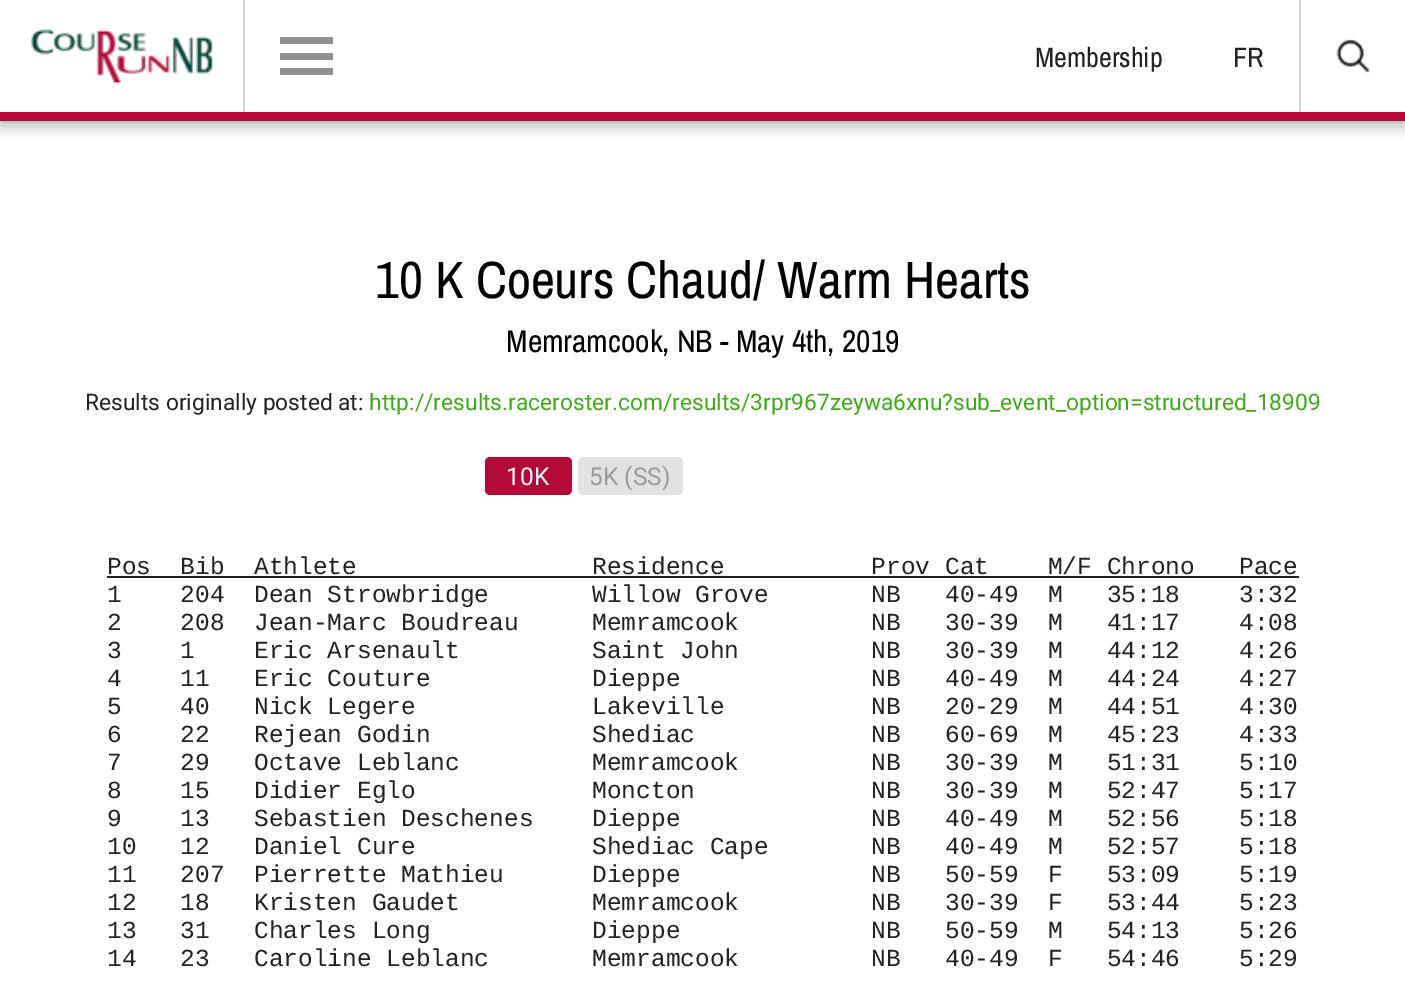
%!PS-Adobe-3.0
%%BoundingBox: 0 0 1405 984
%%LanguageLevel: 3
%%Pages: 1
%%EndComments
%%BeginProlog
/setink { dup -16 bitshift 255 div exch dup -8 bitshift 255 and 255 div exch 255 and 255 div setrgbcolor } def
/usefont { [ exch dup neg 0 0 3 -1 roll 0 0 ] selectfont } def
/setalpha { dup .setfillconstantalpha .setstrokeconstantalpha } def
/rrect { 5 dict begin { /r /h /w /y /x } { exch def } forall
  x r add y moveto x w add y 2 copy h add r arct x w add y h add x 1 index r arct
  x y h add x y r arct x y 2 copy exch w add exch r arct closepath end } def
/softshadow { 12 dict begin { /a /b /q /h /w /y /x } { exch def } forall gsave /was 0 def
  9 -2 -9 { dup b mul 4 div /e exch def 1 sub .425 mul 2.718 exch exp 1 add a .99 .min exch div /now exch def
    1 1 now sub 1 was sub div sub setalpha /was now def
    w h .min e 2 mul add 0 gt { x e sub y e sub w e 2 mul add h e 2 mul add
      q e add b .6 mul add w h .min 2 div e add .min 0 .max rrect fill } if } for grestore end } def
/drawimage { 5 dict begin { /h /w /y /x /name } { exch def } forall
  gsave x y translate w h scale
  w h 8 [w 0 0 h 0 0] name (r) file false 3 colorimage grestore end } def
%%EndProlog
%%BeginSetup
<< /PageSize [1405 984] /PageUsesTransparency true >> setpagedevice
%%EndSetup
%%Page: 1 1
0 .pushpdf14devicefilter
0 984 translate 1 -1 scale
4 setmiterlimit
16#FFFFFF setink
0 0 1405 984 rectfill
gsave
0 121 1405 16 rectclip
16#000000 setink
0 0 1405 121 0 9 0.5 softshadow
grestore
(img1.raw) 31 29 183 56 drawimage
[
    [243 0 2 112 16#D4D4D4]
    [280 37 53 7 16#919191]
    [280 53 53 7 16#919191]
    [280 68 53 7 16#919191]
] { aload pop setink rectfill } forall
/ArchivoNarrow-Regular 28 usefont
16#222222 setink
1035 67 moveto (Membership) show
16#D4D4D4 setink
1299 0 2 112 rectfill
16#222222 setink
1233 67 moveto (FR) show
(img2.raw) 1336 39 35 34 drawimage
16#B50937 setink
0 112 1405 9 rectfill
/ArchivoNarrow-Regular 52.5 usefont
16#000000 setink
375 298 moveto (10 K Coeurs Chaud/ Warm Hearts) show
/ArchivoNarrow-Regular 31.5 usefont
506 352 moveto (Memramcook, NB - May 4th, 2019) show
/Roboto-Regular 22.75 usefont
16#222222 setink
85 410 moveto (Results originally posted at:) show
16#3DAC12 setink
369 410 moveto (http://results.raceroster.com/results/3rpr967zeywa6xnu?sub_event_option=structured_18909) show
16#B50937 setink
485 457 87 38 5 rrect fill
/Roboto-Regular 24.5 usefont
16#FFFFFF setink
506 485 moveto (10K) show
16#E2E2E2 setink
578 457 105 38 5 rrect fill
16#999999 setink
589 485 moveto (5K \(SS\)) show
/LiberationMono-Regular 24.5 usefont
16#222222 setink
107 574 moveto (Pos  Bib  Athlete                Residence          Prov Cat    M/F Chrono   Pace) show
107 576 1192 2 rectfill
[
    [(1    204  Dean Strowbridge       Willow Grove       NB   40-49  M   35:18    3:32) 107 602]
    [(2    208  Jean-Marc Boudreau     Memramcook         NB   30-39  M   41:17    4:08) 107 630]
    [(3    1    Eric Arsenault         Saint John         NB   30-39  M   44:12    4:26) 107 658]
    [(4    11   Eric Couture           Dieppe             NB   40-49  M   44:24    4:27) 107 686]
    [(5    40   Nick Legere            Lakeville          NB   20-29  M   44:51    4:30) 107 714]
    [(6    22   Rejean Godin           Shediac            NB   60-69  M   45:23    4:33) 107 742]
    [(7    29   Octave Leblanc         Memramcook         NB   30-39  M   51:31    5:10) 107 770]
    [(8    15   Didier Eglo            Moncton            NB   30-39  M   52:47    5:17) 107 798]
    [(9    13   Sebastien Deschenes    Dieppe             NB   40-49  M   52:56    5:18) 107 826]
    [(10   12   Daniel Cure            Shediac Cape       NB   40-49  M   52:57    5:18) 107 854]
    [(11   207  Pierrette Mathieu      Dieppe             NB   50-59  F   53:09    5:19) 107 882]
    [(12   18   Kristen Gaudet         Memramcook         NB   30-39  F   53:44    5:23) 107 910]
    [(13   31   Charles Long           Dieppe             NB   50-59  M   54:13    5:26) 107 938]
    [(14   23   Caroline Leblanc       Memramcook         NB   40-49  F   54:46    5:29) 107 966]
] { aload pop moveto show } forall
.poppdf14devicefilter showpage
%%EOF
